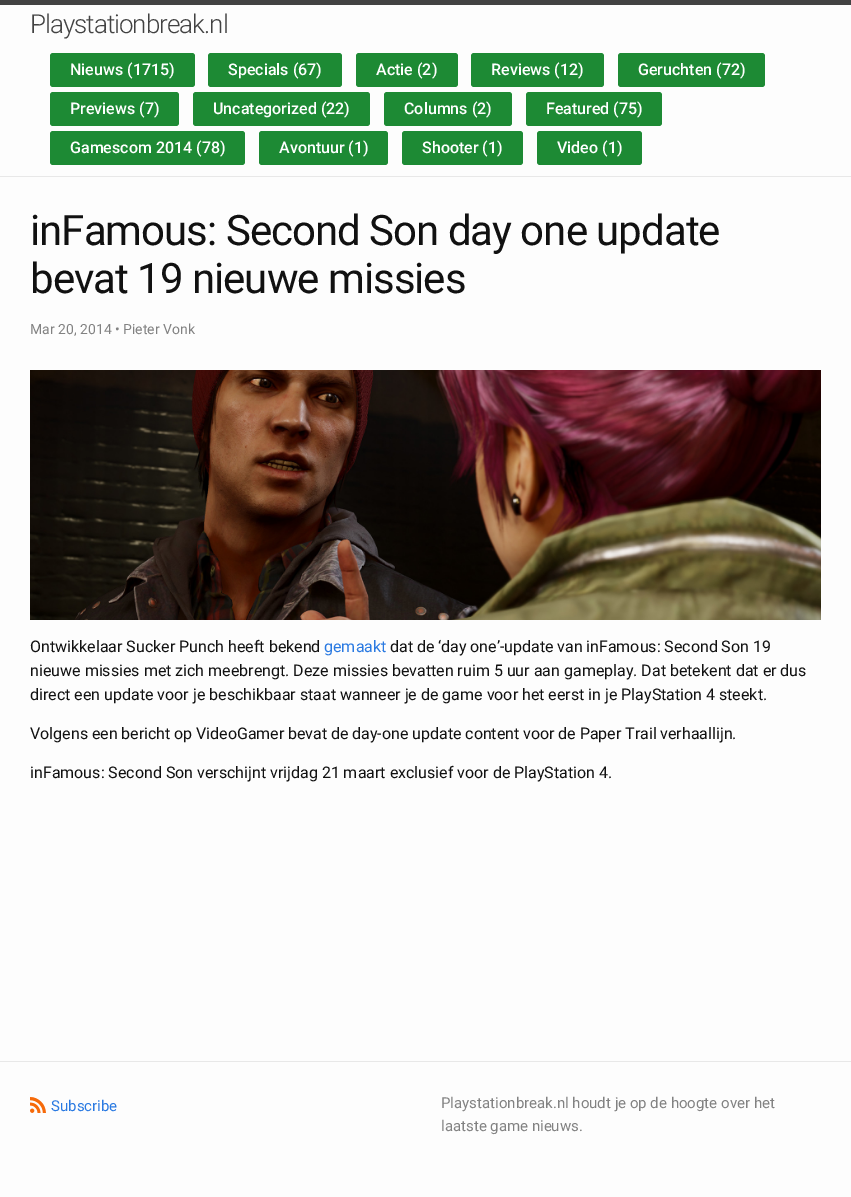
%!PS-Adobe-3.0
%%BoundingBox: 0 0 851 1197
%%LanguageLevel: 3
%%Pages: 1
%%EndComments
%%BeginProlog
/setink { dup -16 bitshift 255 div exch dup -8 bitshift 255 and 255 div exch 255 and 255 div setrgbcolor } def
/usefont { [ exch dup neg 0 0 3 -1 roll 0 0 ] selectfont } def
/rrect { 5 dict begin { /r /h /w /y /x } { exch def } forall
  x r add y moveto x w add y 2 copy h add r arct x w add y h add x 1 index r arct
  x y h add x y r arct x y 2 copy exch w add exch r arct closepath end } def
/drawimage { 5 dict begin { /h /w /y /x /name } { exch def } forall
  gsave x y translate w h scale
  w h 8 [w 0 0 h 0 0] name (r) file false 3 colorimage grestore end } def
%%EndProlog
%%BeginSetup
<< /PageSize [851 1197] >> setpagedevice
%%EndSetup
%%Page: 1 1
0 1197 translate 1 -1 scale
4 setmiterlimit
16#FDFDFD setink
0 0 851 1197 rectfill
16#424242 setink
0 0 851 5 rectfill
16#E8E8E8 setink
0 176 851 1 rectfill
/Roboto-Light 26 usefont
16#424242 setink
30 33 moveto -1 0 (Playstationbreak.nl) ashow
16#1D8A34 setink
50 53 145 34 3 rrect fill
/Roboto-Medium 16 usefont
16#FFFFFF setink
70 75 moveto (Nieuws \(1715\)) show
16#1D8A34 setink
208 53 134 34 3 rrect fill
16#FFFFFF setink
228 75 moveto (Specials \(67\)) show
16#1D8A34 setink
356 53 102 34 3 rrect fill
16#FFFFFF setink
376 75 moveto (Actie \(2\)) show
16#1D8A34 setink
471 53 133 34 3 rrect fill
16#FFFFFF setink
491 75 moveto (Reviews \(12\)) show
16#1D8A34 setink
618 53 147 34 3 rrect fill
16#FFFFFF setink
638 75 moveto (Geruchten \(72\)) show
16#1D8A34 setink
50 92 129 34 3 rrect fill
16#FFFFFF setink
70 114 moveto (Previews \(7\)) show
16#1D8A34 setink
193 92 177 34 3 rrect fill
16#FFFFFF setink
213 114 moveto (Uncategorized \(22\)) show
16#1D8A34 setink
384 92 128 34 3 rrect fill
16#FFFFFF setink
404 114 moveto (Columns \(2\)) show
16#1D8A34 setink
526 92 136 34 3 rrect fill
16#FFFFFF setink
546 114 moveto (Featured \(75\)) show
16#1D8A34 setink
50 131 195 34 3 rrect fill
16#FFFFFF setink
70 153 moveto (Gamescom 2014 \(78\)) show
16#1D8A34 setink
259 131 129 34 3 rrect fill
16#FFFFFF setink
279 153 moveto (Avontuur \(1\)) show
16#1D8A34 setink
402 131 121 34 3 rrect fill
16#FFFFFF setink
422 153 moveto (Shooter \(1\)) show
16#1D8A34 setink
537 131 105 34 3 rrect fill
16#FFFFFF setink
557 153 moveto (Video \(1\)) show
/Roboto-Regular 42 usefont
16#111111 setink
30 245 moveto -1 0 (inFamous: Second Son day one update) ashow
30 293 moveto -1 0 (bevat 19 nieuwe missies) ashow
/Roboto-Regular 14 usefont
16#828282 setink
30 334 moveto (Mar 20, 2014 •) show
123 334 moveto (Pieter Vonk) show
(img1.raw) 30 370 791 250 drawimage
/Roboto-Regular 16 usefont
16#111111 setink
30 652 moveto (Ontwikkelaar Sucker Punch heeft bekend) show
16#2A7AE2 setink
324 652 moveto (gemaakt) show
16#111111 setink
390 652 moveto -0.25 0 32 (dat de ‘day one’-update van inFamous: Second Son 19) widthshow
30 676 moveto (nieuwe missies met zich meebrengt. Deze missies bevatten ruim 5 uur aan gameplay. Dat betekent dat er dus) show
30 700 moveto (direct een update voor je beschikbaar staat wanneer je de game voor het eerst in je PlayStation 4 steekt.) show
30 739 moveto -0.2 0 32 (Volgens een bericht op VideoGamer bevat de day-one update content voor de Paper Trail verhaallijn.) widthshow
30 778 moveto (inFamous: Second Son verschijnt vrijdag 21 maart exclusief voor de PlayStation 4.) show
16#E8E8E8 setink
0 1061 851 1 rectfill
(img2.raw) 30 1097 16 16 drawimage
/Roboto-Regular 15 usefont
16#2A7AE2 setink
51 1111 moveto (Subscribe) show
16#828282 setink
441 1108 moveto (Playstationbreak.nl houdt je op de hoogte over het) show
441 1131 moveto (laatste game nieuws.) show
showpage
%%EOF
